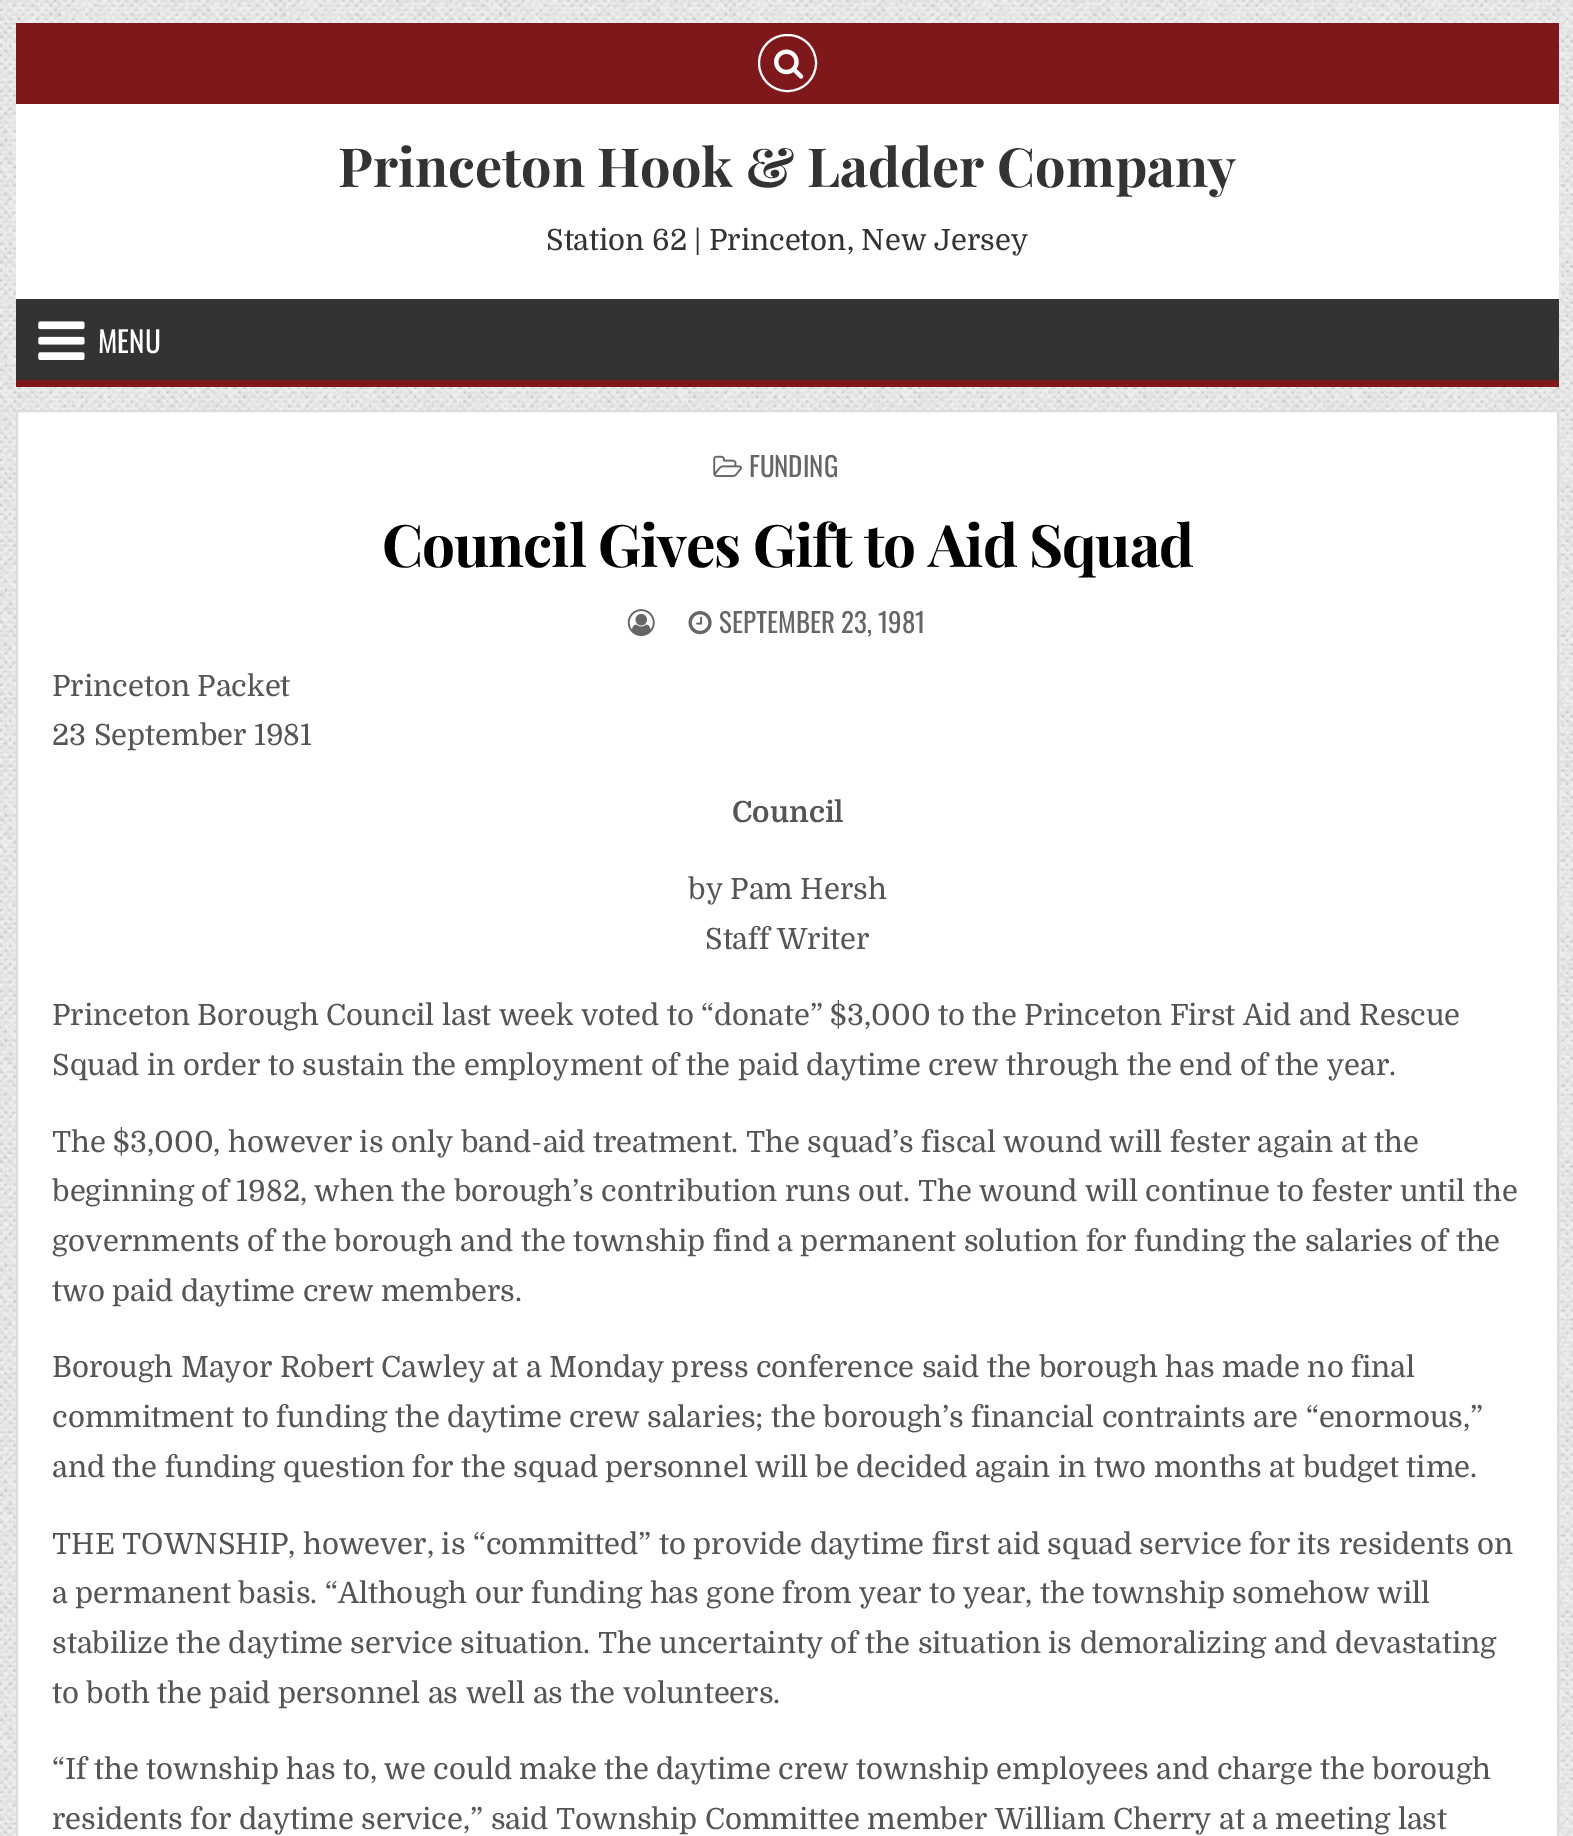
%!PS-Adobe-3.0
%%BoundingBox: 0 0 1573 1836
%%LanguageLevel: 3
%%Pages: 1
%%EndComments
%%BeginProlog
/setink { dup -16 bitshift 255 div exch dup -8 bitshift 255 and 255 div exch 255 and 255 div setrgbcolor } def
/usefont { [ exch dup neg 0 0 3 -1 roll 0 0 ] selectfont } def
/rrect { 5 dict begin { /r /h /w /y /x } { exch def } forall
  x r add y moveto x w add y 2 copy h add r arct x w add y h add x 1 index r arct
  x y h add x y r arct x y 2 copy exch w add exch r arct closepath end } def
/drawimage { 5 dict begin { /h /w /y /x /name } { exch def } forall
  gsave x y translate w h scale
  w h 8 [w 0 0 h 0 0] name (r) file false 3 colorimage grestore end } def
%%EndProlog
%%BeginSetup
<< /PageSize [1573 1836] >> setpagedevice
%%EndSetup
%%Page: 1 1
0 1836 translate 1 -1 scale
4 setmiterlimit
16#FFFFFF setink
0 0 1573 1836 rectfill
(img1.raw) 0 0 1573 1836 drawimage
16#7F181B setink
16 23 1543 81 rectfill
16#FFFFFF setink
2 setlinewidth
759 35 57 56 28 rrect stroke
(img2.raw) 774 49 30 30 drawimage
16 104 1543 195 rectfill
/PlayfairDisplay-Bold 54 usefont
16#333333 setink
338 187 moveto (Princeton Hook & Ladder Company) show
/Domine-Regular 29.25 usefont
546 250 moveto (Station 62 | Princeton, New Jersey) show
16 299 1543 81 rectfill
16#7F181B setink
16 380 1543 7 rectfill
(img3.raw) 38 321 47 39 drawimage
/Oswald-Regular 29.25 usefont
16#FFFFFF setink
98 353 moveto (MENU) show
17 411 moveto 1558 411 lineto 1558 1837 lineto 17 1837 lineto closepath gsave fill grestore
16#DDDDDD setink
stroke
(img4.raw) 713 455 29 22 drawimage
/Oswald-Regular 27 usefont
16#666666 setink
749 477 moveto (FUNDING) show
/PlayfairDisplay-Bold 58.5 usefont
16#000000 setink
382 567 moveto -1.1 0 (Council Gives Gift to Aid Squad) ashow
(img5.raw) 627 609 28 28 drawimage
(img6.raw) 688 611 24 24 drawimage
/Oswald-Regular 27 usefont
16#666666 setink
719 633 moveto (SEPTEMBER 23, 1981) show
/Domine-Regular 29.25 usefont
16#555555 setink
52 696 moveto (Princeton Packet) show
52 745 moveto (23 September 1981) show
/Domine-Bold 29.25 usefont
732 822 moveto (Council) show
/Domine-Regular 29.25 usefont
[
    [(by Pam Hersh) 688 899]
    [(Staff Writer) 705 949]
    [(Princeton Borough Council last week voted to “donate” $3,000 to the Princeton First Aid and Rescue) 52 1025]
    [(Squad in order to sustain the employment of the paid daytime crew through the end of the year.) 52 1075]
    [(The $3,000, however is only band-aid treatment. The squad’s fiscal wound will fester again at the) 52 1152]
    [(beginning of 1982, when the borough’s contribution runs out. The wound will continue to fester until the) 52 1201]
    [(governments of the borough and the township find a permanent solution for funding the salaries of the) 52 1251]
    [(two paid daytime crew members.) 52 1301]
    [(Borough Mayor Robert Cawley at a Monday press conference said the borough has made no final) 52 1377]
    [(commitment to funding the daytime crew salaries; the borough’s financial contraints are “enormous,”) 52 1427]
    [(and the funding question for the squad personnel will be decided again in two months at budget time.) 52 1477]
    [(THE TOWNSHIP, however, is “committed” to provide daytime first aid squad service for its residents on) 52 1554]
    [(a permanent basis. “Although our funding has gone from year to year, the township somehow will) 52 1603]
    [(stabilize the daytime service situation. The uncertainty of the situation is demoralizing and devastating) 52 1653]
    [(to both the paid personnel as well as the volunteers.) 52 1703]
    [(“If the township has to, we could make the daytime crew township employees and charge the borough) 52 1779]
    [(residents for daytime service,” said Township Committee member William Cherry at a meeting last) 52 1829]
] { aload pop moveto show } forall
showpage
%%EOF
